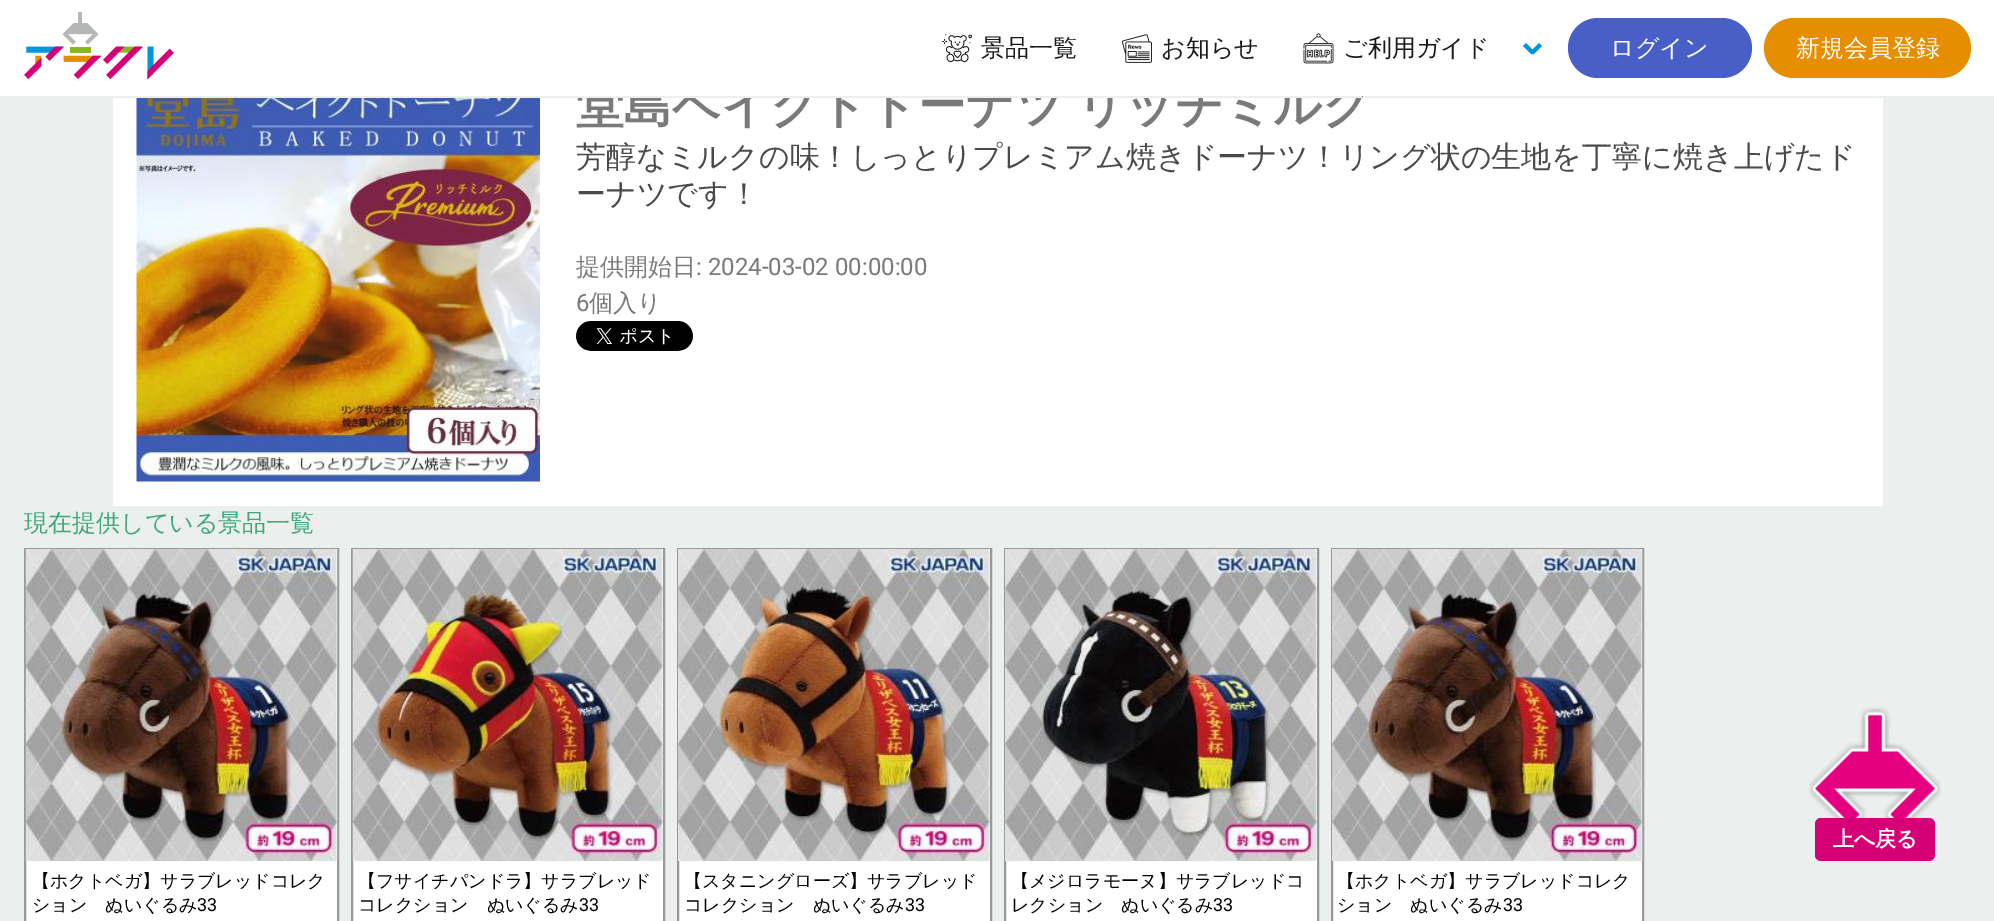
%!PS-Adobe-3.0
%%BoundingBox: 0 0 1994 921
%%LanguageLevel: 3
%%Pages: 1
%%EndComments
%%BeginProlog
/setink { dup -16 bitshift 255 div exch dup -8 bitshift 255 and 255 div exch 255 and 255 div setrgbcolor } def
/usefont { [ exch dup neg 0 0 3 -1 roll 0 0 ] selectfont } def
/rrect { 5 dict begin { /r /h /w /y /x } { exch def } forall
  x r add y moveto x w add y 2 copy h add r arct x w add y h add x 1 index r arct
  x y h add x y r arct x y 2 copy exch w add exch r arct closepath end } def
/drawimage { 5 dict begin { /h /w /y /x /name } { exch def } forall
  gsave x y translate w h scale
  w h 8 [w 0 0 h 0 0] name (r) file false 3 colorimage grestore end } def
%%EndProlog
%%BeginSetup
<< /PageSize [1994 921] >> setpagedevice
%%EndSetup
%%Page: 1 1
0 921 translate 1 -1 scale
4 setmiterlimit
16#EBEFEE setink
0 0 1994 921 rectfill
16#FFFFFF setink
113 98 1770 408 rectfill
/WenQuanYiZenHei-Bold 48 usefont
16#7A7A7A setink
576 122 moveto -2 0 32 (堂島ベイクドドーナツ リッチミルク) widthshow
16#FFFFFF setink
0 0 1994 96 rectfill
16#EBEFEE setink
577 96 785 2 rectfill
(img1.raw) 24 12 150 68 drawimage
(img2.raw) 942 34 30 29 drawimage
/WenQuanYiZenHei-Medium 24 usefont
16#1A1A1A setink
981 56 moveto (景品一覧) show
(img3.raw) 1122 34 30 29 drawimage
1161 56 moveto (お知らせ) show
(img4.raw) 1303 33 31 31 drawimage
1343 56 moveto (ご利用ガイド) show
16#0096DB setink
1530.5 51.5 moveto 1539 43 lineto 1542 46 lineto 1533.5 54.5 lineto closepath fill
1523 46 moveto 1526 43 lineto 1534.5 51.5 lineto 1531.5 54.5 lineto closepath fill
16#485FC7 setink
1568 18 184 60 30 rrect fill
16#FFFFFF setink
1610 56 moveto (ログイン) show
16#E68E00 setink
1764 18 207 60 30 rrect fill
16#FFFFFF setink
1796 56 moveto (新規会員登録) show
(img5.raw) 136 98 404 384 drawimage
/WenQuanYiZenHei-Medium 30 usefont
16#4A4A4A setink
576 167 moveto (芳醇なミルクの味！しっとりプレミアム焼きドーナツ！リング状の生地を丁寧に焼き上げたド) show
576 204 moveto (ーナツです！) show
/WenQuanYiZenHei-Medium 24 usefont
16#7A7A7A setink
576 275 moveto (提供開始日) show
/Roboto-Regular 24 usefont
696 275 moveto (: 2024-03-02 00:00:00) show
576 311 moveto (6) show
/WenQuanYiZenHei-Medium 24 usefont
589 311 moveto (個入り) show
(img6.raw) 576 321 117 30 drawimage
16#43A67B setink
24 531 moveto (現在提供している景品一覧) show
16#FFFFFF setink
26 861 311 60 rectfill
16#999999 setink
2 setlinewidth
25 549 313 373 rectstroke
(img7.raw) 25 549 313 312 drawimage
/WenQuanYiZenHei-Medium 18 usefont
16#000000 setink
32 887 moveto (【ホクトベガ】サラブレッドコレク) show
32 911 moveto (ション　ぬいぐるみ) show
/Roboto-Regular 18 usefont
197 911 moveto (33) show
16#FFFFFF setink
353 861 310 60 rectfill
16#999999 setink
352 549 312 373 rectstroke
(img8.raw) 352 549 311 312 drawimage
/WenQuanYiZenHei-Medium 18 usefont
16#000000 setink
358 887 moveto (【フサイチパンドラ】サラブレッド) show
358 911 moveto (コレクション　ぬいぐるみ) show
/Roboto-Regular 18 usefont
579 911 moveto (33) show
16#FFFFFF setink
679 861 311 60 rectfill
16#999999 setink
678 549 313 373 rectstroke
(img9.raw) 678 549 312 312 drawimage
/WenQuanYiZenHei-Medium 18 usefont
16#000000 setink
684 887 moveto (【スタニングローズ】サラブレッド) show
684 911 moveto (コレクション　ぬいぐるみ) show
/Roboto-Regular 18 usefont
905 911 moveto (33) show
16#FFFFFF setink
1006 861 311 60 rectfill
16#999999 setink
1005 549 313 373 rectstroke
(img10.raw) 1005 549 312 312 drawimage
/WenQuanYiZenHei-Medium 18 usefont
16#000000 setink
1011 887 moveto (【メジロラモーヌ】サラブレッドコ) show
1011 911 moveto (レクション　ぬいぐるみ) show
/Roboto-Regular 18 usefont
1213 911 moveto (33) show
16#FFFFFF setink
1333 861 309 60 rectfill
16#999999 setink
1332 549 311 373 rectstroke
(img11.raw) 1332 549 311 312 drawimage
/WenQuanYiZenHei-Medium 18 usefont
16#000000 setink
1337 887 moveto (【ホクトベガ】サラブレッドコレク) show
1337 911 moveto (ション　ぬいぐるみ) show
/Roboto-Regular 18 usefont
1503 911 moveto (33) show
(img12.raw) 1809 707 132 111 drawimage
16#D60076 setink
1815 818 120 43 6 rrect fill
/WenQuanYiZenHei-Bold 21 usefont
16#FFFFFF setink
1833 846 moveto (上へ戻る) show
showpage
%%EOF
